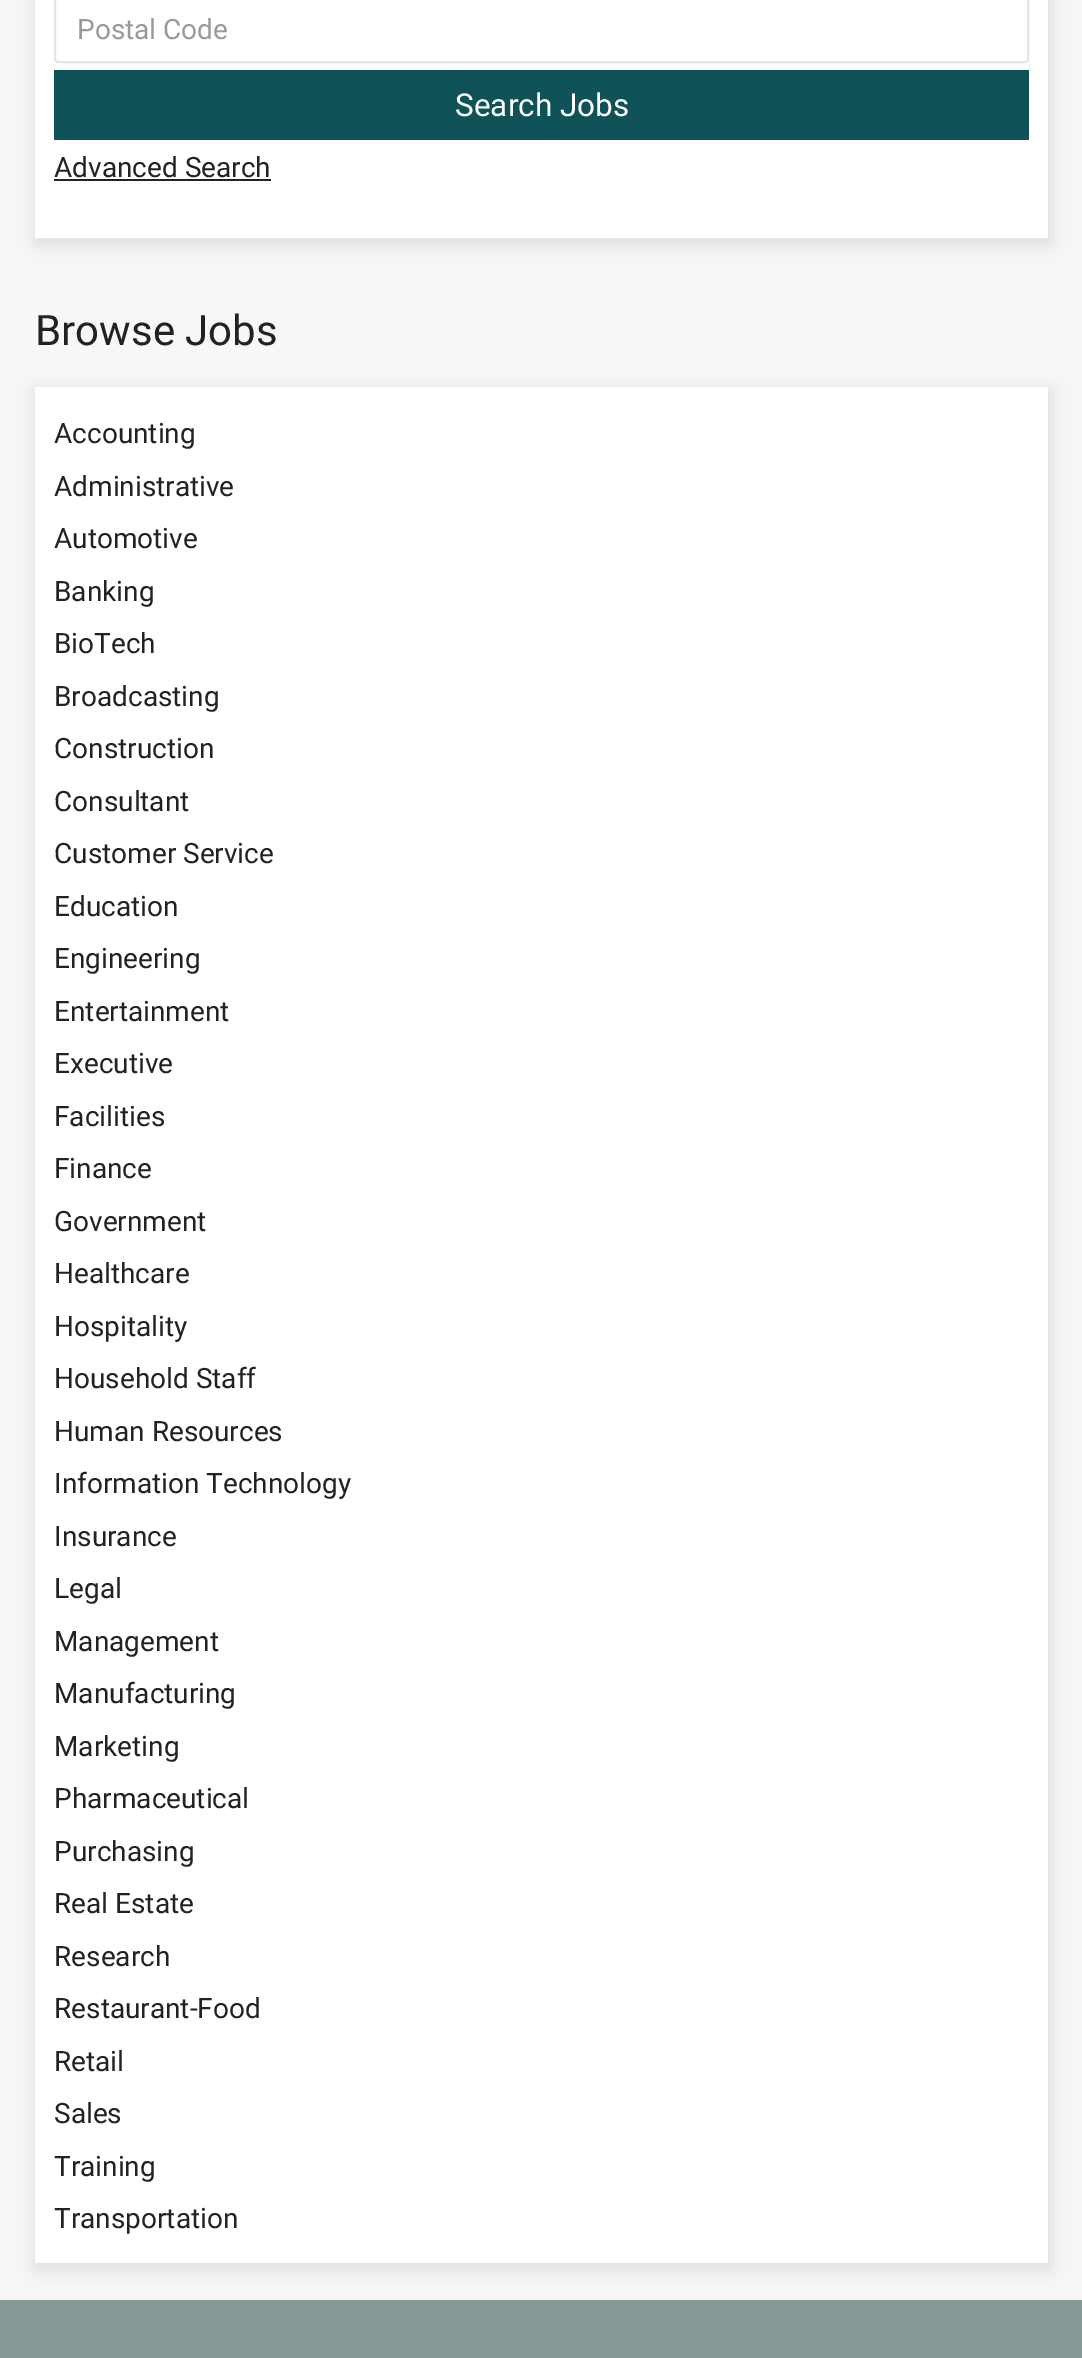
%!PS-Adobe-3.0
%%BoundingBox: 0 0 1082 2358
%%LanguageLevel: 3
%%Pages: 1
%%EndComments
%%BeginProlog
/setink { dup -16 bitshift 255 div exch dup -8 bitshift 255 and 255 div exch 255 and 255 div setrgbcolor } def
/usefont { [ exch dup neg 0 0 3 -1 roll 0 0 ] selectfont } def
/setalpha { dup .setfillconstantalpha .setstrokeconstantalpha } def
/rrect { 5 dict begin { /r /h /w /y /x } { exch def } forall
  x r add y moveto x w add y 2 copy h add r arct x w add y h add x 1 index r arct
  x y h add x y r arct x y 2 copy exch w add exch r arct closepath end } def
/softshadow { 12 dict begin { /a /b /q /h /w /y /x } { exch def } forall gsave /was 0 def
  9 -2 -9 { dup b mul 4 div /e exch def 1 sub .425 mul 2.718 exch exp 1 add a .99 .min exch div /now exch def
    1 1 now sub 1 was sub div sub setalpha /was now def
    w h .min e 2 mul add 0 gt { x e sub y e sub w e 2 mul add h e 2 mul add
      q e add b .6 mul add w h .min 2 div e add .min 0 .max rrect fill } if } for grestore end } def
%%EndProlog
%%BeginSetup
<< /PageSize [1082 2358] /PageUsesTransparency true >> setpagedevice
%%EndSetup
%%Page: 1 1
0 .pushpdf14devicefilter
0 2358 translate 1 -1 scale
4 setmiterlimit
16#F6F8F8 setink
0 0 1082 2358 rectfill
16#000000 setink
35 -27 1017 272 0 9 0.1 softshadow
16#FFFFFF setink
35 0 1013 238 rectfill
16#E4E4E4 setink
2 setlinewidth
55 -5 973 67 3 rrect stroke
/Roboto-Regular 28 usefont
16#999999 setink
77 39 moveto (Postal Code) show
16#0F5257 setink
54 70 975 70 rectfill
/Roboto-Regular 31.5 usefont
16#FFFFFF setink
455 116 moveto (Search Jobs) show
/Roboto-Regular 28 usefont
16#222222 setink
54 177 moveto (Advanced Search) show
54 179 217 2 rectfill
/Roboto-Regular 42 usefont
35 345 moveto (Browse Jobs) show
16#000000 setink
35 390 1017 1880 0 9 0.1 softshadow
16#FFFFFF setink
35 387 1013 1876 rectfill
/Roboto-Regular 28 usefont
16#222222 setink
[
    [(Accounting) 54 443]
    [(Administrative) 54 496]
    [(Automotive) 54 548]
    [(Banking) 54 601]
    [(BioTech) 54 653]
    [(Broadcasting) 54 706]
    [(Construction) 54 758]
    [(Consultant) 54 811]
    [(Customer Service) 54 863]
    [(Education) 54 916]
    [(Engineering) 54 968]
    [(Entertainment) 54 1021]
    [(Executive) 54 1073]
    [(Facilities) 54 1126]
    [(Finance) 54 1178]
    [(Government) 54 1231]
    [(Healthcare) 54 1283]
    [(Hospitality) 54 1336]
    [(Household Staff) 54 1388]
    [(Human Resources) 54 1441]
    [(Information Technology) 54 1493]
    [(Insurance) 54 1546]
    [(Legal) 54 1598]
    [(Management) 54 1651]
    [(Manufacturing) 54 1703]
    [(Marketing) 54 1756]
    [(Pharmaceutical) 54 1808]
    [(Purchasing) 54 1861]
    [(Real Estate) 54 1913]
    [(Research) 54 1966]
    [(Restaurant-Food) 54 2018]
    [(Retail) 54 2071]
    [(Sales) 54 2123]
    [(Training) 54 2176]
    [(Transportation) 54 2228]
] { aload pop moveto show } forall
16#859999 setink
0 2300 1082 58 rectfill
.poppdf14devicefilter showpage
%%EOF
